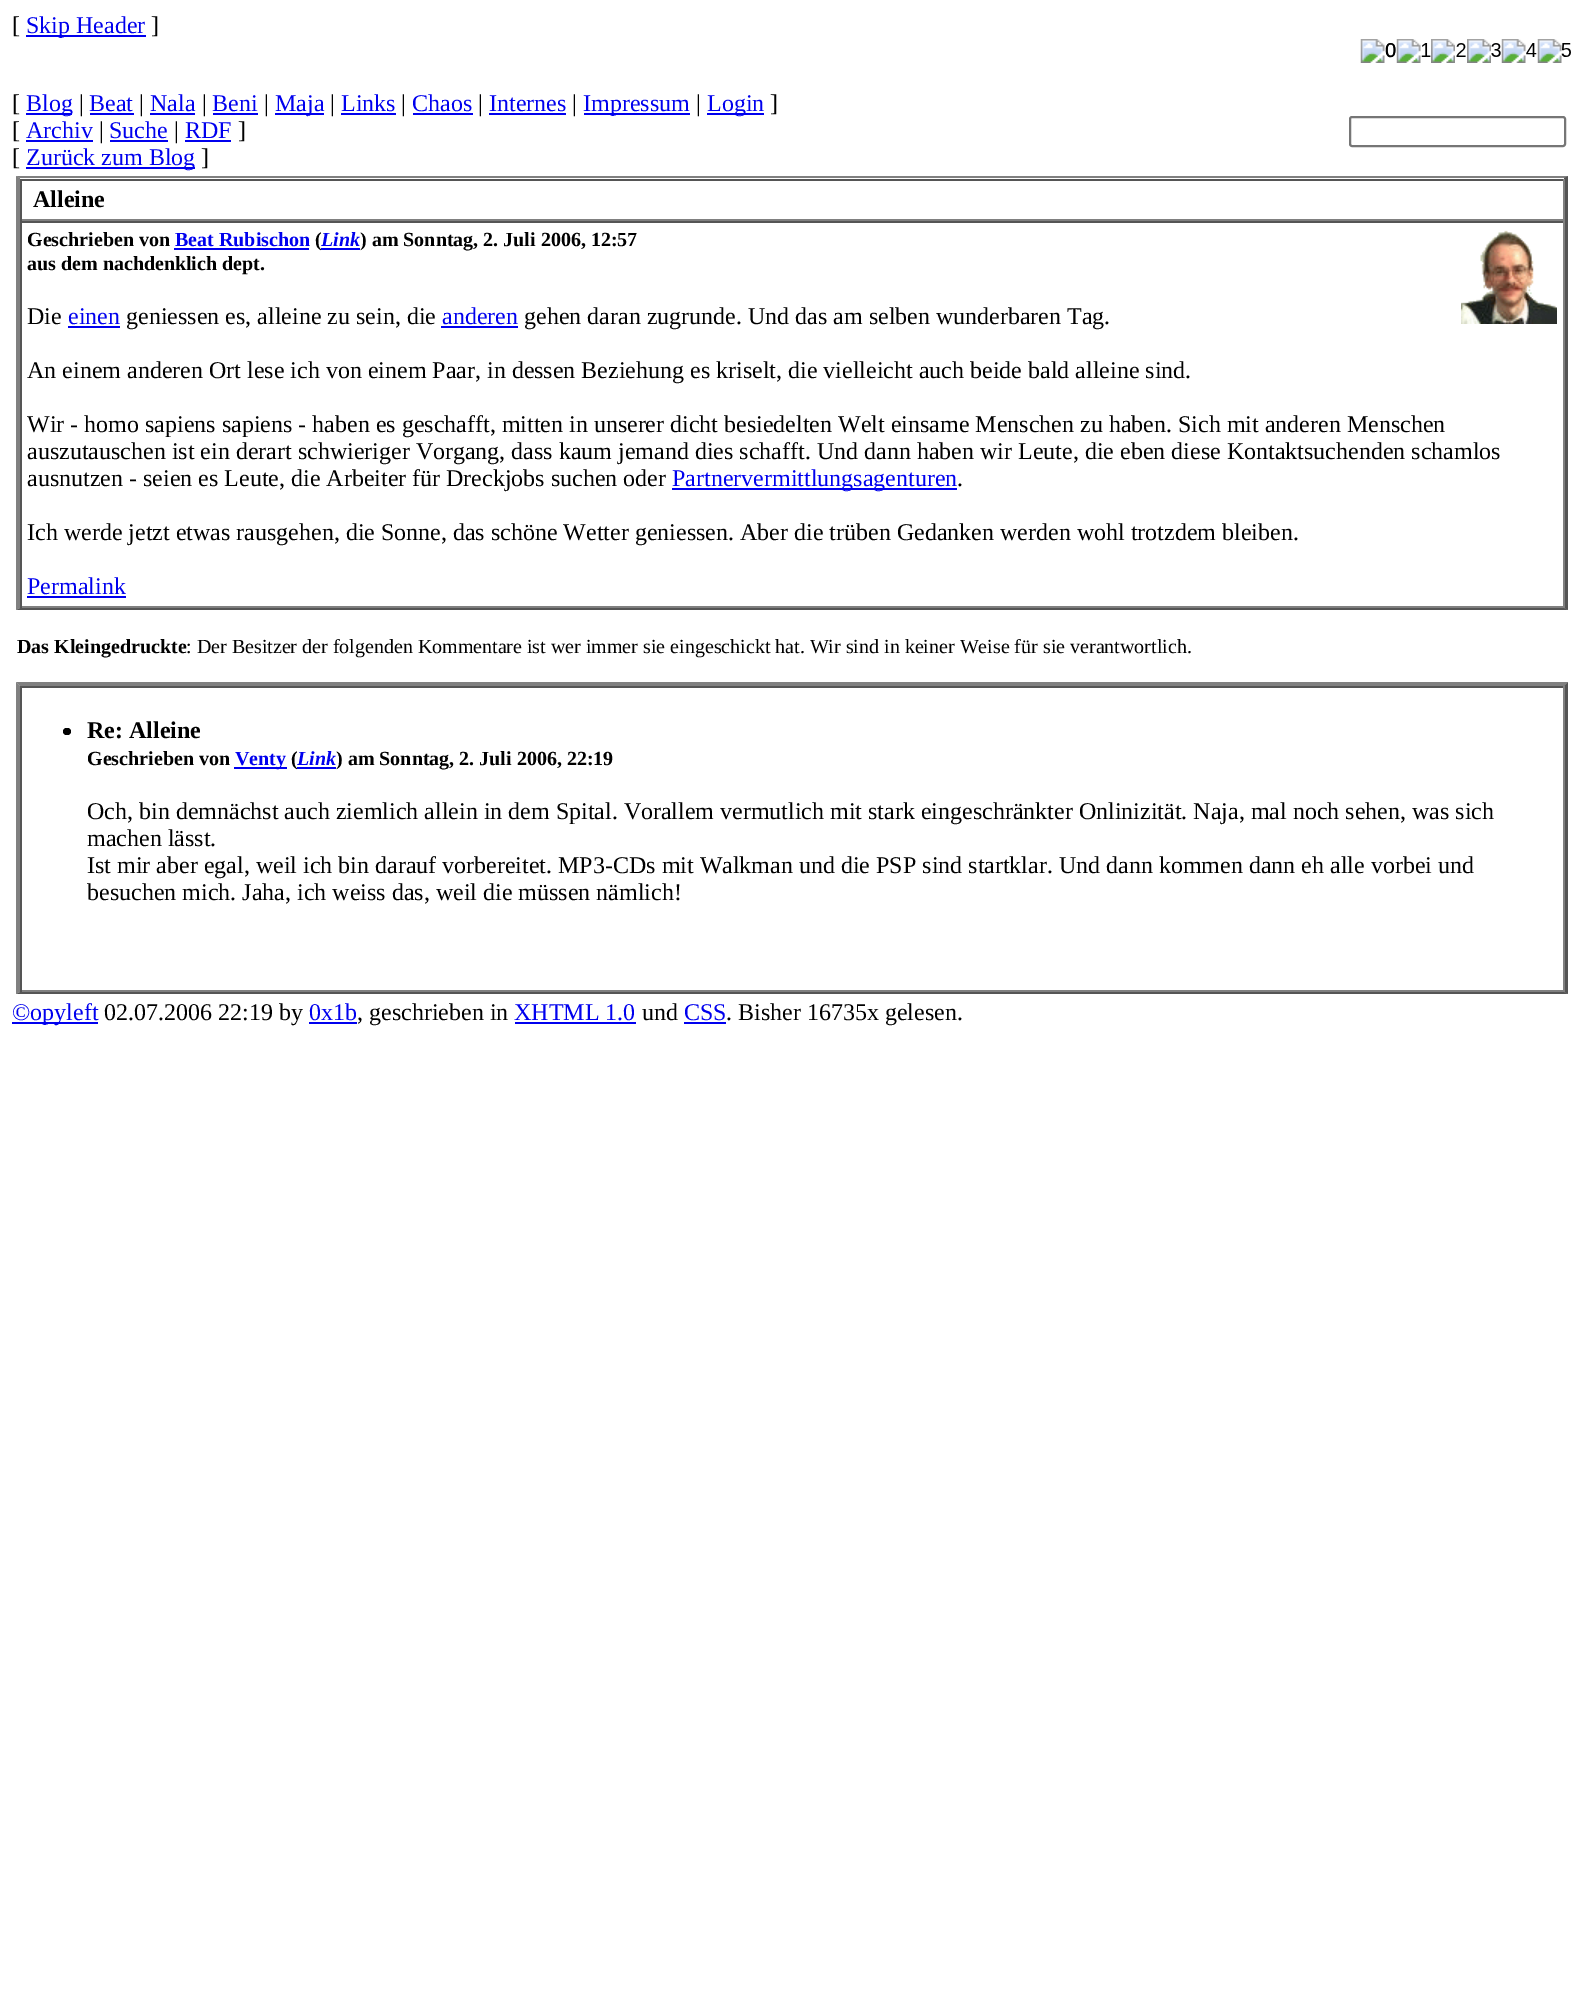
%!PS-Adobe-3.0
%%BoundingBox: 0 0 1584 1990
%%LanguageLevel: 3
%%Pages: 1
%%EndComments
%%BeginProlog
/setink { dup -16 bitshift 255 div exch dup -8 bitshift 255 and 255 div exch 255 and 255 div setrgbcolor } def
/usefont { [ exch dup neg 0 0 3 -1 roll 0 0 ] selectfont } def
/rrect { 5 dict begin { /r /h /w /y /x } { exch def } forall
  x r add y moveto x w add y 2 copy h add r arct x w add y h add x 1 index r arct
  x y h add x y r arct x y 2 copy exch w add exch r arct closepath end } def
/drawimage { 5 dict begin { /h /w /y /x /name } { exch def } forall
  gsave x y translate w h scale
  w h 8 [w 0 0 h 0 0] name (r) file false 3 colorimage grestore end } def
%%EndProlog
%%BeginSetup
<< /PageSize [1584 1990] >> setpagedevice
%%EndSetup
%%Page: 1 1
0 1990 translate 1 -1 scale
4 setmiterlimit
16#FFFFFF setink
0 0 1584 1990 rectfill
/LiberationSerif-Regular 24 usefont
16#000000 setink
12 33 moveto ([) show
16#0000EE setink
26 35 120 2 rectfill
26 33 moveto (Skip Header) show
16#000000 setink
151 33 moveto (]) show
(img1.raw) 1360 39 36 24 drawimage
/LiberationSans-Regular 20 usefont
1385 57 moveto (0) show
(img2.raw) 1396 39 35 24 drawimage
(img3.raw) 1431 39 35 24 drawimage
(img4.raw) 1467 39 34 24 drawimage
(img5.raw) 1501 39 36 24 drawimage
(img6.raw) 1537 39 34 24 drawimage
/LiberationSerif-Regular 24 usefont
12 111 moveto ([) show
16#0000EE setink
26 113 46 2 rectfill
26 111 moveto (Blog) show
16#000000 setink
79 111 moveto (|) show
16#0000EE setink
89 111 moveto (Beat) show
90 113 44 2 rectfill
16#000000 setink
139 111 moveto (|) show
16#0000EE setink
150 111 moveto (Nala) show
150 113 45 2 rectfill
16#000000 setink
202 111 moveto (|) show
16#0000EE setink
212 111 moveto (Beni) show
213 113 45 2 rectfill
16#000000 setink
264 111 moveto (|) show
16#0000EE setink
275 113 49 2 rectfill
275 111 moveto (Maja) show
16#000000 setink
330 111 moveto (|) show
16#0000EE setink
341 111 moveto (Links) show
341 113 55 2 rectfill
16#000000 setink
401 111 moveto (|) show
16#0000EE setink
412 111 moveto (Chaos) show
413 113 60 2 rectfill
16#000000 setink
478 111 moveto (|) show
16#0000EE setink
489 111 moveto (Internes) show
489 113 77 2 rectfill
16#000000 setink
572 111 moveto (|) show
16#0000EE setink
584 113 106 2 rectfill
583 111 moveto (Impressum) show
16#000000 setink
696 111 moveto (|) show
16#0000EE setink
707 113 57 2 rectfill
707 111 moveto (Login) show
16#000000 setink
770 111 moveto (]) show
12 138 moveto ([) show
16#0000EE setink
26 138 moveto (Archiv) show
26 140 67 2 rectfill
16#000000 setink
99 138 moveto (|) show
16#0000EE setink
109 138 moveto (Suche) show
110 140 58 2 rectfill
16#000000 setink
174 138 moveto (|) show
16#0000EE setink
185 138 moveto (RDF) show
185 140 46 2 rectfill
16#000000 setink
238 138 moveto (]) show
12 165 moveto ([) show
16#0000EE setink
26 167 169 2 rectfill
26 165 moveto (Zurück zum Blog) show
16#000000 setink
201 165 moveto (]) show
16#767676 setink
2 setlinewidth
1350 117 215 29 2 rrect stroke
16#808080 setink
16 176 moveto 1568 176 lineto 1564 178 lineto 20 178 lineto closepath fill
16#555555 setink
1568 176 moveto 1568 610 lineto 1564 608 lineto 1564 178 lineto closepath fill
1568 610 moveto 16 610 lineto 20 608 lineto 1564 608 lineto closepath fill
16#808080 setink
16 610 moveto 16 176 lineto 20 178 lineto 20 608 lineto closepath fill
[
    [20 179 1545 2 16#555555]
    [1563 179 2 42 16#808080]
    [20 219 1545 2 16#808080]
    [20 179 2 42 16#555555]
] { aload pop setink rectfill } forall
/LiberationSerif-Bold 24 usefont
16#000000 setink
33 207 moveto (Alleine) show
[
    [20 221 1545 2 16#555555]
    [1563 221 2 387 16#808080]
    [20 606 1545 2 16#808080]
    [20 221 2 387 16#555555]
] { aload pop setink rectfill } forall
/LiberationSerif-Bold 20 usefont
16#000000 setink
27 246 moveto (Geschrieben von) show
16#0000EE setink
175 246 moveto (Beat Rubischon) show
174 248 135 2 rectfill
16#000000 setink
315 246 moveto (\() show
16#0000EE setink
321 248 39 2 rectfill
/LiberationSerif-BoldItalic 20 usefont
321 246 moveto (Link) show
/LiberationSerif-Bold 20 usefont
16#000000 setink
360 246 moveto (\) am Sonntag, 2. Juli 2006, 12:57) show
(img7.raw) 1461 230 96 94 drawimage
27 270 moveto (aus dem nachdenklich dept.) show
/LiberationSerif-Regular 24 usefont
27 324 moveto (Die) show
16#0000EE setink
68 324 moveto (einen) show
68 326 52 2 rectfill
16#000000 setink
126 324 moveto (geniessen es, alleine zu sein, die) show
16#0000EE setink
442 324 moveto (anderen) show
441 326 77 2 rectfill
16#000000 setink
[
    [(gehen daran zugrunde. Und das am selben wunderbaren Tag.) 524 324]
    [(An einem anderen Ort lese ich von einem Paar, in dessen Beziehung es kriselt, die vielleicht auch beide bald alleine sind.) 27 378]
    [(Wir - homo sapiens sapiens - haben es geschafft, mitten in unserer dicht besiedelten Welt einsame Menschen zu haben. Sich mit anderen Menschen) 27 432]
    [(auszutauschen ist ein derart schwieriger Vorgang, dass kaum jemand dies schafft. Und dann haben wir Leute, die eben diese Kontaktsuchenden schamlos) 27 459]
    [(ausnutzen - seien es Leute, die Arbeiter für Dreckjobs suchen oder) 27 486]
] { aload pop moveto show } forall
16#0000EE setink
672 488 285 2 rectfill
672 486 moveto (Partnervermittlungsagenturen) show
16#000000 setink
957 486 moveto (.) show
27 540 moveto (Ich werde jetzt etwas rausgehen, die Sonne, das schöne Wetter geniessen. Aber die trüben Gedanken werden wohl trotzdem bleiben.) show
16#0000EE setink
27 594 moveto (Permalink) show
27 596 99 2 rectfill
/LiberationSerif-Bold 20 usefont
16#000000 setink
17 653 moveto (Das Kleingedruckte) show
/LiberationSerif-Regular 20 usefont
186 653 moveto (: Der Besitzer der folgenden Kommentare ist wer immer sie eingeschickt hat. Wir sind in keiner Weise für sie verantwortlich.) show
16#808080 setink
16 682 moveto 1568 682 lineto 1564 686 lineto 20 686 lineto closepath fill
16#555555 setink
1568 682 moveto 1568 994 lineto 1564 992 lineto 1564 686 lineto closepath fill
1568 994 moveto 16 994 lineto 20 992 lineto 1564 992 lineto closepath fill
16#808080 setink
16 994 moveto 16 682 lineto 20 686 lineto 20 992 lineto closepath fill
[
    [20 686 1545 2 16#555555]
    [1563 686 2 306 16#808080]
    [20 990 1545 2 16#808080]
    [20 686 2 306 16#555555]
] { aload pop setink rectfill } forall
16#000000 setink
63 728 8 7 3.5 rrect fill
/LiberationSerif-Bold 24 usefont
87 738 moveto (Re: Alleine) show
/LiberationSerif-Bold 20 usefont
87 765 moveto (Geschrieben von) show
16#0000EE setink
234 767 53 2 rectfill
235 765 moveto (Venty) show
16#000000 setink
291 765 moveto (\() show
16#0000EE setink
297 767 39 2 rectfill
/LiberationSerif-BoldItalic 20 usefont
297 765 moveto (Link) show
/LiberationSerif-Bold 20 usefont
16#000000 setink
336 765 moveto (\) am Sonntag, 2. Juli 2006, 22:19) show
/LiberationSerif-Regular 24 usefont
[
    [(Och, bin demnächst auch ziemlich allein in dem Spital. Vorallem vermutlich mit stark eingeschränkter Onlinizität. Naja, mal noch sehen, was sich) 87 819]
    [(machen lässt.) 87 846]
    [(Ist mir aber egal, weil ich bin darauf vorbereitet. MP3-CDs mit Walkman und die PSP sind startklar. Und dann kommen dann eh alle vorbei und) 87 873]
    [(besuchen mich. Jaha, ich weiss das, weil die müssen nämlich!) 87 900]
] { aload pop moveto show } forall
16#0000EE setink
12 1022 86 2 rectfill
12 1020 moveto (©opyleft) show
16#000000 setink
104 1020 moveto (02.07.2006 22:19 by) show
16#0000EE setink
309 1020 moveto (0x1b) show
309 1022 48 2 rectfill
16#000000 setink
357 1020 moveto (, geschrieben in) show
16#0000EE setink
514 1020 moveto (XHTML 1.0) show
515 1022 121 2 rectfill
16#000000 setink
642 1020 moveto (und) show
16#0000EE setink
684 1020 moveto (CSS) show
684 1022 42 2 rectfill
16#000000 setink
726 1020 moveto (. Bisher 16735x gelesen.) show
showpage
%%EOF
